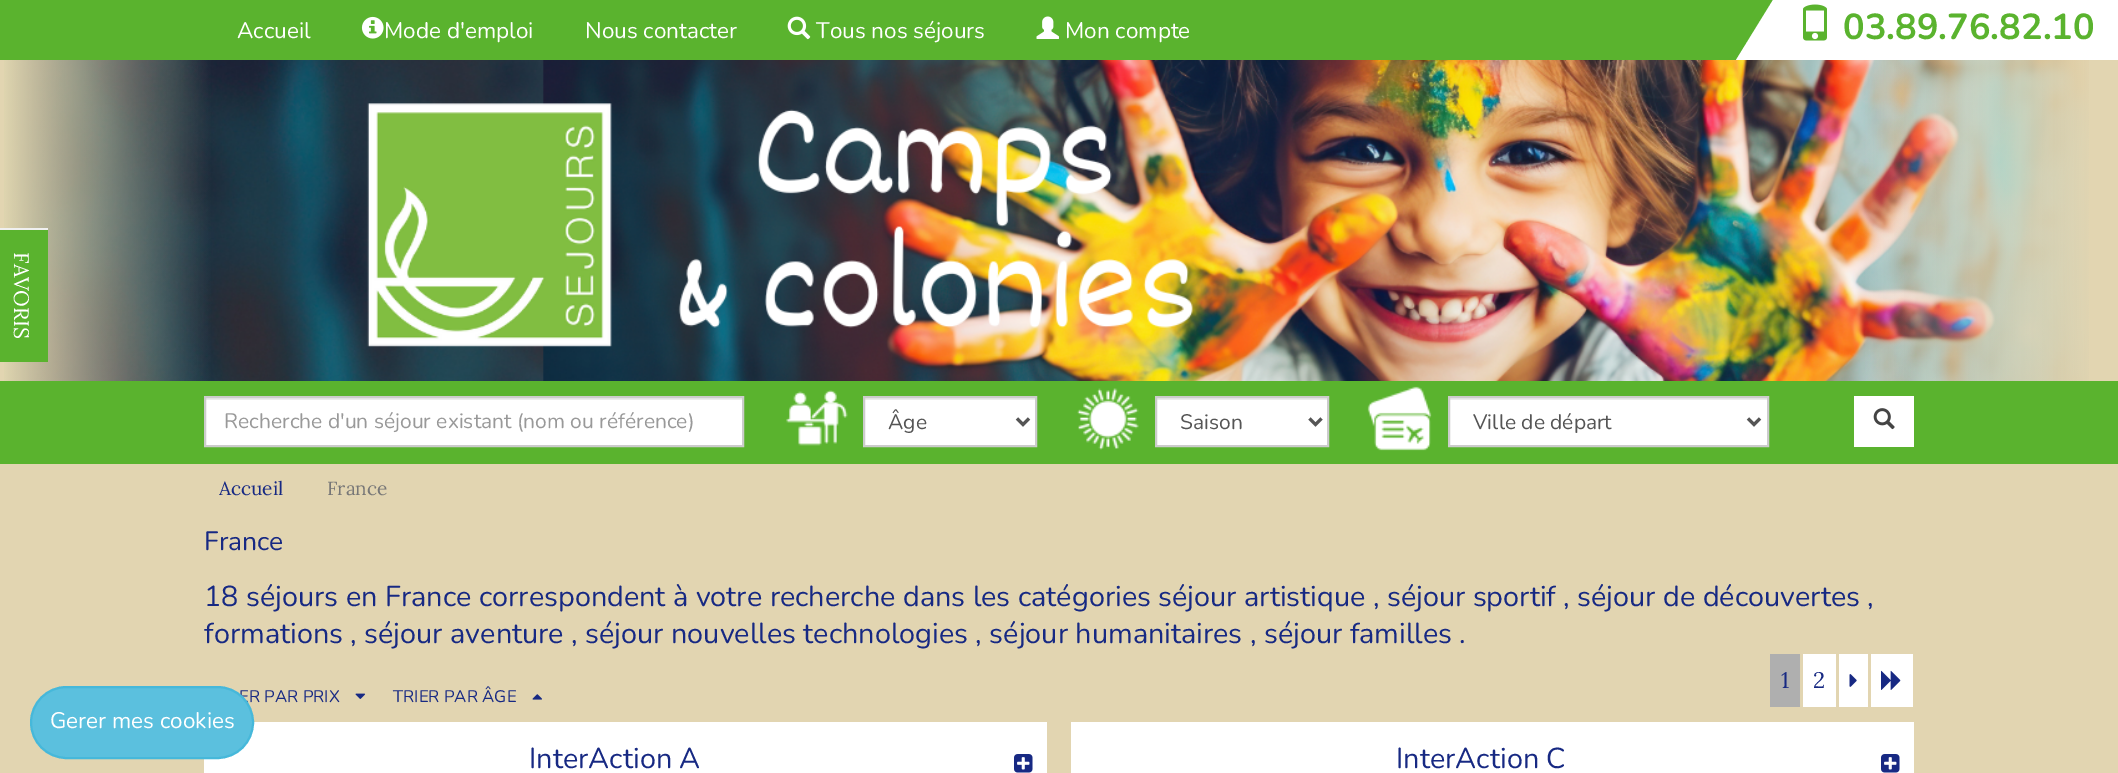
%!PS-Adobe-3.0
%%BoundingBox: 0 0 2118 773
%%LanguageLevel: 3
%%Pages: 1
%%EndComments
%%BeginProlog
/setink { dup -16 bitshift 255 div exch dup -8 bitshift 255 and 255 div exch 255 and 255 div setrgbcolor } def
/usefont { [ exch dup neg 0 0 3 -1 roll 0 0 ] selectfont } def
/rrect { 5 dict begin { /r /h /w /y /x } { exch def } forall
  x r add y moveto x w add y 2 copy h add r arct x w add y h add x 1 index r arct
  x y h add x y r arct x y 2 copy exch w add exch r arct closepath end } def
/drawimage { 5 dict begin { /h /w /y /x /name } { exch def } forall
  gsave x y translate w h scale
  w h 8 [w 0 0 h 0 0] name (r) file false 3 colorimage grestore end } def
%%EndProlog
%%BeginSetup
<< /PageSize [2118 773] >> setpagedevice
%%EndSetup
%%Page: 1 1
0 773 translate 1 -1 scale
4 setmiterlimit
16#E2D5B1 setink
0 0 2118 773 rectfill
(img1.raw) 4 60 2085 321 drawimage
16#5AB32E setink
0 0 1773 60 rectfill
/Nunito-Regular 22.5 usefont
16#FFFFFF setink
237 38 moveto (Accueil) show
(img2.raw) 361 16 23 23 drawimage
384 38 moveto (Mode d'emploi) show
585 38 moveto (Nous contacter) show
(img3.raw) 787 16 24 24 drawimage
816 38 moveto (Tous nos séjours) show
(img4.raw) 1036 16 23 23 drawimage
1065 38 moveto (Mon compte) show
1773 60 moveto 1736 60 lineto 1773 0 lineto closepath fill
1773 0 345 60 rectfill
(img5.raw) 1803 4 24 37 drawimage
/Nunito-Bold 36 usefont
16#5AB32E setink
1843 39 moveto (03.89.76.82.10) show
0 230 48 132 rectfill
16#F0F0F0 setink
0 228 48 2 rectfill
/Lora-Regular 21 usefont
16#FFFFFF setink
gsave 14 252 translate 90 rotate 0 0 moveto (FAVORIS) show grestore
[
    [0 381 2118 83 16#5AB32E]
    [206 400 536 45 16#FFFFFF]
    [206 398 537 2 16#ECECEC]
] { aload pop setink rectfill } forall
16#CCCCCC setink
2 setlinewidth
205 397 538 49 rectstroke
/Nunito-Regular 21 usefont
16#999999 setink
224 428 moveto (Recherche d'un séjour existant \(nom ou référence\)) show
(img6.raw) 786 390 62 56 drawimage
16#FFFFFF setink
865 400 170 45 rectfill
16#ECECEC setink
864 398 171 2 rectfill
16#CCCCCC setink
864 397 172 49 rectstroke
16#555555 setink
3 setlinewidth
1017 418.5 moveto 1023 424.5 lineto 1029 418.5 lineto stroke
888 429 moveto (Âge) show
(img7.raw) 1077 388 62 62 drawimage
16#FFFFFF setink
1157 400 170 45 rectfill
16#ECECEC setink
1157 398 171 2 rectfill
16#CCCCCC setink
2 setlinewidth
1156 397 172 49 rectstroke
16#555555 setink
3 setlinewidth
1309.5 418.5 moveto 1315.5 424.5 lineto 1321.5 418.5 lineto stroke
1180 429 moveto (Saison) show
(img8.raw) 1367 386 65 65 drawimage
16#FFFFFF setink
1450 400 317 45 rectfill
16#ECECEC setink
1449 398 318 2 rectfill
16#CCCCCC setink
2 setlinewidth
1449 397 319 49 rectstroke
16#555555 setink
3 setlinewidth
1748 418.5 moveto 1754 424.5 lineto 1760 418.5 lineto stroke
1473 429 moveto (Ville de départ) show
16#FFFFFF setink
1854 396 60 51 rectfill
(img9.raw) 1873 408 22 22 drawimage
/Nunito-Regular 16.75 usefont
16#172983 setink
239 702 moveto (ER PAR PRIX) show
16#FFFFFF setink
204 722 843 51 rectfill
16#5BC0DE setink
31 687 222 71 35.5 rrect gsave fill grestore
16#46B8DA setink
2 setlinewidth
stroke
/Nunito-Regular 22.5 usefont
16#FFFFFF setink
50 728 moveto (Gerer mes cookies) show
/Lora-Regular 19 usefont
16#172983 setink
219 495 moveto (Accueil) show
16#777777 setink
327 495 moveto (France) show
/Nunito-Regular 26.5 usefont
16#172983 setink
204 550 moveto (France) show
/Nunito-Regular 28.8 usefont
204 606 moveto (18 séjours en France correspondent à votre recherche dans les catégories séjour artistique , séjour sportif , séjour de découvertes ,) show
204 643 moveto (formations , séjour aventure , séjour nouvelles technologies , séjour humanitaires , séjour familles .) show
16#AFAFAF setink
1770 654 30 53 rectfill
/Lora-Regular 22.5 usefont
16#172983 setink
1781 688 moveto (1) show
16#FFFFFF setink
1803 654 33 53 rectfill
16#172983 setink
1813 688 moveto (2) show
16#FFFFFF setink
1839 654 29 53 rectfill
(img10.raw) 1849 674 8 13 drawimage
1871 654 42 53 rectfill
(img11.raw) 1881 670 20 20 drawimage
(img12.raw) 355 693 11 6 drawimage
/Nunito-Regular 16.75 usefont
16#172983 setink
393 702 moveto (TRIER PAR ÂGE) show
(img13.raw) 532 694 10 6 drawimage
/Nunito-Regular 28.8 usefont
529 768 moveto (InterAction A) show
(img14.raw) 1014 754 19 19 drawimage
16#FFFFFF setink
1071 722 843 51 rectfill
16#172983 setink
1396 768 moveto (InterAction C) show
(img14.raw) 1881 754 19 19 drawimage
showpage
%%EOF
